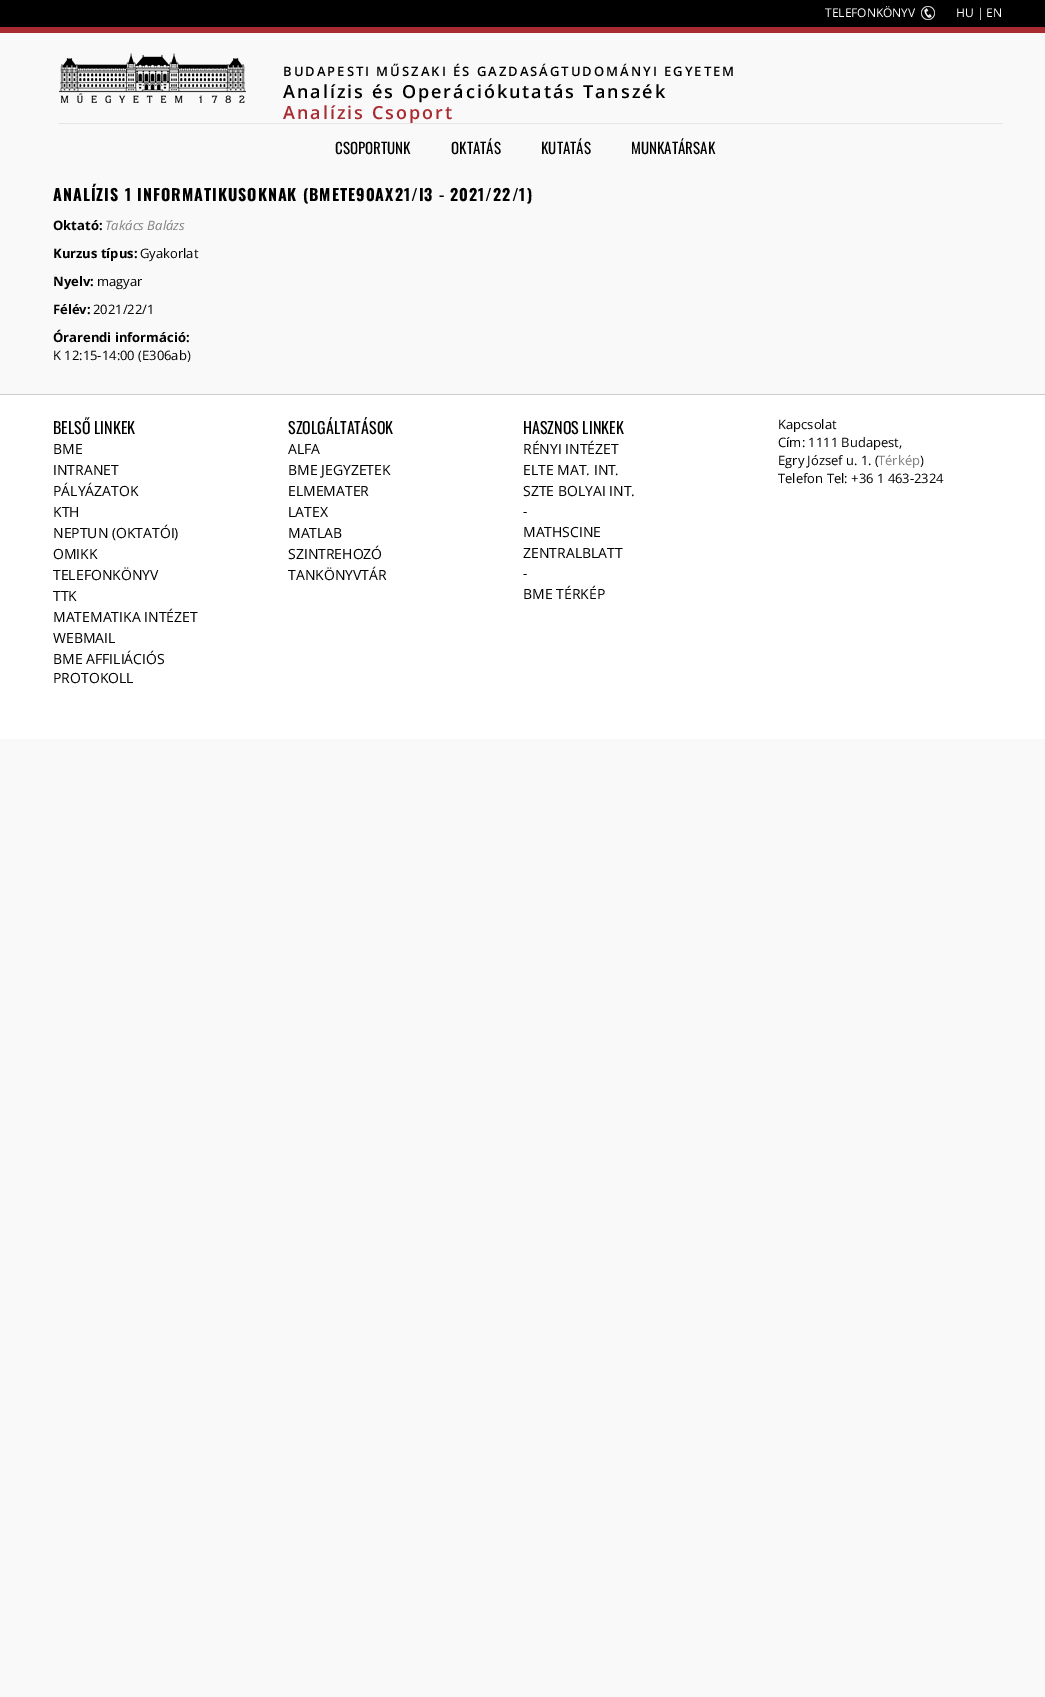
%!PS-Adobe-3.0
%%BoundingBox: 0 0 1045 1697
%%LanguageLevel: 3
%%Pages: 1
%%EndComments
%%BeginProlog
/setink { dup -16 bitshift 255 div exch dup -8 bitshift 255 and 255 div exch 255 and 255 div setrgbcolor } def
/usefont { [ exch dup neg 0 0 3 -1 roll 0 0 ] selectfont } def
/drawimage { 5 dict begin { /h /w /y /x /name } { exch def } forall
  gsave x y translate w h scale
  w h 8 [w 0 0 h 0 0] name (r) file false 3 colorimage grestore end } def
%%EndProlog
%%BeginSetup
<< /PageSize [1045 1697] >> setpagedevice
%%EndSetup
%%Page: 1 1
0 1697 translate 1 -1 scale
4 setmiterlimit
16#F9F9FA setink
0 0 1045 1697 rectfill
16#000000 setink
0 0 1045 27 rectfill
/OpenSans-Regular 12 usefont
16#FFFFFF setink
825 17 moveto (TELEFONKÖNYV) show
(img1.raw) 921 6 14 14 drawimage
956 17 moveto (HU | EN) show
16#A82B31 setink
0 27 1045 6 rectfill
(img2.raw) 59 53 187 50 drawimage
/OpenSans-SemiBold 13 usefont
16#000000 setink
283 76 moveto 2 0 (BUDAPESTI MŰSZAKI ÉS GAZDASÁGTUDOMÁNYI EGYETEM) ashow
/OpenSans-SemiBold 18 usefont
283 98 moveto 2 0 (Analízis és Operációkutatás Tanszék) ashow
16#A82B31 setink
283 119 moveto 2 0 (Analízis Csoport) ashow
16#E6E6E6 setink
58 123 945 1 rectfill
/Oswald-Regular 15 usefont
16#000000 setink
[
    [(CSOPORTUNK) 335 154]
    [(OKTATÁS) 451 154]
    [(KUTATÁS) 541 154]
    [(MUNKATÁRSAK) 631 154]
] { aload pop moveto show } forall
/Oswald-Bold 16 usefont
53 201 moveto 1 0 (ANALÍZIS 1 INFORMATIKUSOKNAK \(BMETE90AX21/I3 - 2021/22/1\)) ashow
/OpenSans-Bold 13 usefont
53 230 moveto (Oktató:) show
/OpenSans-Italic 13 usefont
16#808080 setink
105 230 moveto (Takács Balázs) show
/OpenSans-Bold 13 usefont
16#000000 setink
53 258 moveto (Kurzus típus:) show
/OpenSans-Regular 13 usefont
140 258 moveto (Gyakorlat) show
/OpenSans-Bold 13 usefont
53 286 moveto (Nyelv:) show
/OpenSans-Regular 13 usefont
97 286 moveto (magyar) show
/OpenSans-Bold 13 usefont
53 314 moveto (Félév:) show
/OpenSans-Regular 13 usefont
93 314 moveto (2021/22/1) show
/OpenSans-Bold 13 usefont
53 342 moveto (Órarendi információ:) show
/OpenSans-Regular 13 usefont
53 360 moveto (K 12:15-14:00 \(E306ab\)) show
16#FFFFFF setink
0 395 1045 344 rectfill
16#CCCCCC setink
0 394 1045 1 rectfill
/Oswald-Regular 16 usefont
16#000000 setink
53 434 moveto (BELSŐ LINKEK) show
/OpenSans-Regular 14 usefont
[
    [(BME) 53 454]
    [(INTRANET) 53 475]
    [(PÁLYÁZATOK) 53 496]
    [(KTH) 53 517]
    [(NEPTUN \(OKTATÓI\)) 53 538]
    [(OMIKK) 53 559]
    [(TELEFONKÖNYV) 53 580]
    [(TTK) 53 601]
    [(MATEMATIKA INTÉZET) 53 622]
    [(WEBMAIL) 53 643]
    [(BME AFFILIÁCIÓS) 53 664]
    [(PROTOKOLL) 53 683]
] { aload pop moveto show } forall
/Oswald-Regular 16 usefont
288 434 moveto (SZOLGÁLTATÁSOK) show
/OpenSans-Regular 14 usefont
[
    [(ALFA) 288 454]
    [(BME JEGYZETEK) 288 475]
    [(ELMEMATER) 288 496]
    [(LATEX) 288 517]
    [(MATLAB) 288 538]
    [(SZINTREHOZÓ) 288 559]
    [(TANKÖNYVTÁR) 288 580]
] { aload pop moveto show } forall
/Oswald-Regular 16 usefont
523 434 moveto (HASZNOS LINKEK) show
/OpenSans-Regular 14 usefont
523 454 moveto (RÉNYI INTÉZET) show
523 475 moveto (ELTE MAT. INT) show
/OpenSans-Regular 13 usefont
615 475 moveto (.) show
/OpenSans-Regular 14 usefont
523 496 moveto (SZTE BOLYAI INT.) show
/OpenSans-Regular 13 usefont
523 516 moveto (-) show
/OpenSans-Regular 14 usefont
523 537 moveto (MATHSCINE) show
523 558 moveto (ZENTRALBLATT) show
/OpenSans-Regular 13 usefont
523 578 moveto (-) show
/OpenSans-Regular 14 usefont
523 599 moveto (BME TÉRKÉP) show
/OpenSans-Regular 13 usefont
[
    [(Kapcsolat) 778 429]
    [(Cím: 1111 Budapest,) 778 447]
    [(Egry József u. 1. \() 778 465]
] { aload pop moveto show } forall
16#808080 setink
878 465 moveto (Térkép) show
16#000000 setink
920 465 moveto (\)) show
778 483 moveto (Telefon Tel: +36 1 463-2324) show
showpage
%%EOF
